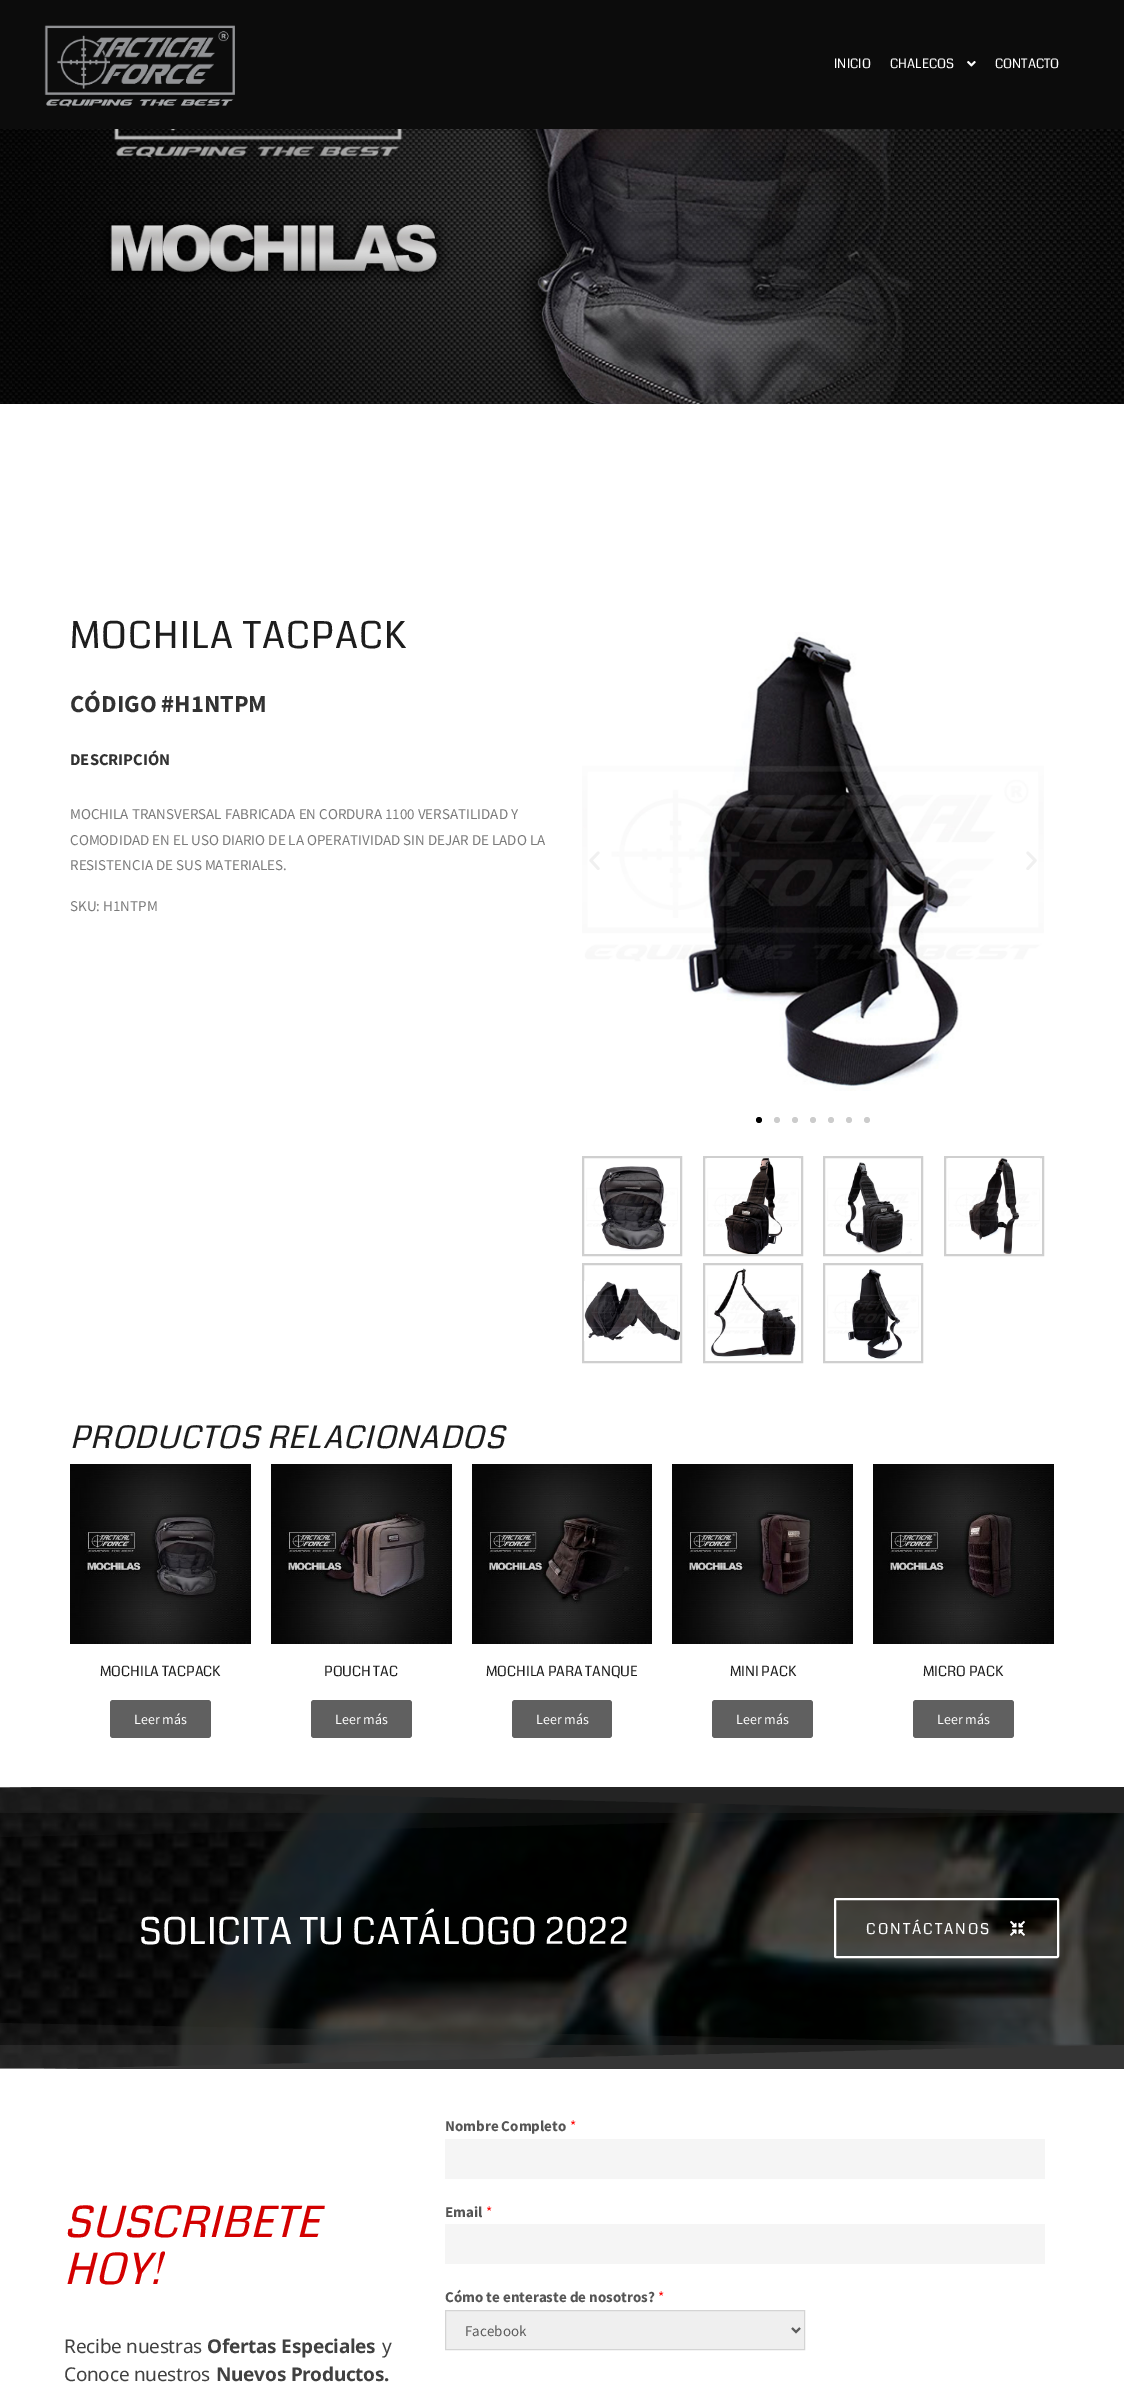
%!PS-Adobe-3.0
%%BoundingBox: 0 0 1124 2383
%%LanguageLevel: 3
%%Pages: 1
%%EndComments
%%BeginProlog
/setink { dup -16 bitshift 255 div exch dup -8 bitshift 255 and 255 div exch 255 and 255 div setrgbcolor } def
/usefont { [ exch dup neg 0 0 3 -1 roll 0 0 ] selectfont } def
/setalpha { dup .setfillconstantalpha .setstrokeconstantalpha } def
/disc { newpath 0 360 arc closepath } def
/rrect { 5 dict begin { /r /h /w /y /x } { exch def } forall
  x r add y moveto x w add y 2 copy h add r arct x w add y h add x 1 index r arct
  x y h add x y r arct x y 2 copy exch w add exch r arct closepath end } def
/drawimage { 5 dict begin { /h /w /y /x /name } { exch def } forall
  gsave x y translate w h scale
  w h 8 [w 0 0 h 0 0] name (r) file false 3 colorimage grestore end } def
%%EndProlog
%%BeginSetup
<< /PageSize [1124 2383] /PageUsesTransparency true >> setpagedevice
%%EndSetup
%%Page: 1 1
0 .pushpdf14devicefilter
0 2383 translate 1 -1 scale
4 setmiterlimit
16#FFFFFF setink
0 0 1124 2383 rectfill
16#0C0C0C setink
0 0 1124 129 rectfill
(img1.raw) 44 25 191 82 drawimage
/Coda-Regular 13 usefont
16#FFFFFF setink
834 68 moveto (INICIO) show
890 68 moveto (CHALECOS) show
(img2.raw) 967 61 9 6 drawimage
995 68 moveto (CONTACTO) show
(img3.raw) 0 129 1124 275 drawimage
/Coda-Regular 37 usefont
16#1D1D1D setink
70 648 moveto 1.2 0 (MOCHILA TACPACK) ashow
/SourceSansPro-Bold 24.5 usefont
16#323232 setink
70 712 moveto (CÓDIGO #H1NTPM) show
/SourceSansPro-Bold 16.5 usefont
70 765 moveto (DESCRIPCIÓN) show
/SourceSansPro-Regular 15 usefont
16#7A7A7A setink
[
    [(MOCHILA TRANSVERSAL FABRICADA EN CORDURA 1100 VERSATILIDAD Y) 70 819]
    [(COMODIDAD EN EL USO DIARIO DE LA OPERATIVIDAD SIN DEJAR DE LADO LA) 70 845]
    [(RESISTENCIA DE SUS MATERIALES.) 70 870]
    [(SKU: H1NTPM) 70 911]
] { aload pop moveto show } forall
(img4.raw) 582 632 462 459 drawimage
(img5.raw) 589 851 11 19 drawimage
(img6.raw) 1026 851 11 19 drawimage
16#000000 setink
759 1120 3 disc fill
16#CCCCCC setink
777 1120 3 disc fill
795 1120 3 disc fill
813 1120 3 disc fill
831 1120 3 disc fill
849 1120 3 disc fill
867 1120 3 disc fill
16#CFCFCF setink
2 setlinewidth
583 1157 98 98 rectstroke
(img7.raw) 586 1166 92 85 drawimage
704 1157 98 98 rectstroke
(img8.raw) 707 1158 92 96 drawimage
824 1157 98 98 rectstroke
(img9.raw) 827 1162 92 92 drawimage
945 1157 98 98 rectstroke
(img10.raw) 948 1158 92 96 drawimage
583 1264 98 98 rectstroke
(img11.raw) 584 1281 96 60 drawimage
704 1264 98 98 rectstroke
(img12.raw) 707 1268 92 89 drawimage
824 1264 98 98 rectstroke
(img13.raw) 827 1269 92 91 drawimage
/Coda-Italic 31 usefont
16#1D1D1D setink
70 1448 moveto 1.2 0 (PRODUCTOS RELACIONADOS) ashow
(img14.raw) 70 1464 181 180 drawimage
/Coda-Regular 14 usefont
100 1676 moveto (MOCHILA TACPACK) show
16#606060 setink
110 1700 101 38 3 rrect fill
/SourceSansPro-Regular 14 usefont
16#FFFFFF setink
134 1724 moveto (Leer más) show
(img15.raw) 271 1464 181 180 drawimage
/Coda-Regular 14 usefont
16#1D1D1D setink
324 1676 moveto (POUCH TAC) show
16#606060 setink
311 1700 101 38 3 rrect fill
/SourceSansPro-Regular 14 usefont
16#FFFFFF setink
335 1724 moveto (Leer más) show
(img16.raw) 472 1464 180 180 drawimage
/Coda-Regular 14 usefont
16#1D1D1D setink
486 1676 moveto (MOCHILA PARA TANQUE) show
16#606060 setink
512 1700 100 38 3 rrect fill
/SourceSansPro-Regular 14 usefont
16#FFFFFF setink
536 1724 moveto (Leer más) show
(img17.raw) 672 1464 181 180 drawimage
/Coda-Regular 14 usefont
16#1D1D1D setink
730 1676 moveto (MINI PACK) show
16#606060 setink
712 1700 101 38 3 rrect fill
/SourceSansPro-Regular 14 usefont
16#FFFFFF setink
736 1724 moveto (Leer más) show
(img18.raw) 873 1464 181 180 drawimage
/Coda-Regular 14 usefont
16#1D1D1D setink
923 1676 moveto (MICRO PACK) show
16#606060 setink
913 1700 101 38 3 rrect fill
/SourceSansPro-Regular 14 usefont
16#FFFFFF setink
937 1724 moveto (Leer más) show
(img19.raw) 0 1788 1124 280 drawimage
16#242424 setink
-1 1787 moveto 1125 1787 lineto 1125 1813 lineto closepath fill
0.5 setalpha
0 1787 1117 26 rectfill
0.25 setalpha
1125 1787 moveto -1 1787 lineto -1 1837 lineto 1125 1813 lineto closepath fill
/Coda-Regular 37 usefont
1 setalpha
16#FFFFFF setink
139 1944 moveto 0.4 0 (SOLICITA TU CATÁLOGO 2022) ashow
835 1899 223 58 1 rrect stroke
/Coda-Regular 15 usefont
866 1934 moveto 2 0 (CONTÁCTANOS) ashow
(img20.raw) 1010 1920 15 16 drawimage
gsave
0 2022 1124 47 rectclip
16#353535 setink
-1 2070 moveto 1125 2070 lineto 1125 2045 lineto closepath fill
grestore
0.5 setalpha
16#353535 setink
0 2045 1116 24 rectfill
gsave
0 2022 1124 47 rectclip
0.25 setalpha
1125 2070 moveto -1 2070 lineto -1 2023 lineto 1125 2045 lineto closepath fill
grestore
/Coda-Italic 43 usefont
1 setalpha
16#D30000 setink
64 2237 moveto 1.2 0 (SUSCRIBETE) ashow
64 2284 moveto 1.2 0 (HOY!) ashow
/NotoSans-Regular 19 usefont
16#414141 setink
64 2353 moveto -0.25 0 (Recibe nuestras) ashow
/NotoSans-Bold 19 usefont
207 2353 moveto -0.25 0 (Ofertas Especiales) ashow
/NotoSans-Regular 19 usefont
382 2353 moveto -0.25 0 (y) ashow
64 2381 moveto -0.25 0 (Conoce nuestros) ashow
/NotoSans-Bold 19 usefont
216 2381 moveto -0.25 0 (Nuevos Productos.) ashow
/SourceSansPro-Bold 15 usefont
16#555555 setink
445 2131 moveto (Nombre Completo) show
/SourceSansPro-Regular 15 usefont
16#FF0000 setink
570 2131 moveto (*) show
16#F5F5F5 setink
445 2139 600 40 rectfill
/SourceSansPro-Bold 15 usefont
16#555555 setink
445 2217 moveto (Email) show
/SourceSansPro-Regular 15 usefont
16#FF0000 setink
486 2217 moveto (*) show
16#F5F5F5 setink
445 2224 600 40 rectfill
/SourceSansPro-Bold 15 usefont
16#555555 setink
445 2302 moveto (Cómo te enteraste de nosotros?) show
/SourceSansPro-Regular 15 usefont
16#FF0000 setink
658 2302 moveto (*) show
16#EFEFEF setink
445.5 2310.5 moveto 804.5 2310.5 lineto 804.5 2349.5 lineto 445.5 2349.5 lineto closepath gsave fill grestore
16#D4D4D4 setink
1 setlinewidth
stroke
16#5B5B5B setink
2 setlinewidth
792 2328 moveto 796 2332 lineto 800 2328 lineto stroke
465 2336 moveto (Facebook) show
.poppdf14devicefilter showpage
%%EOF
